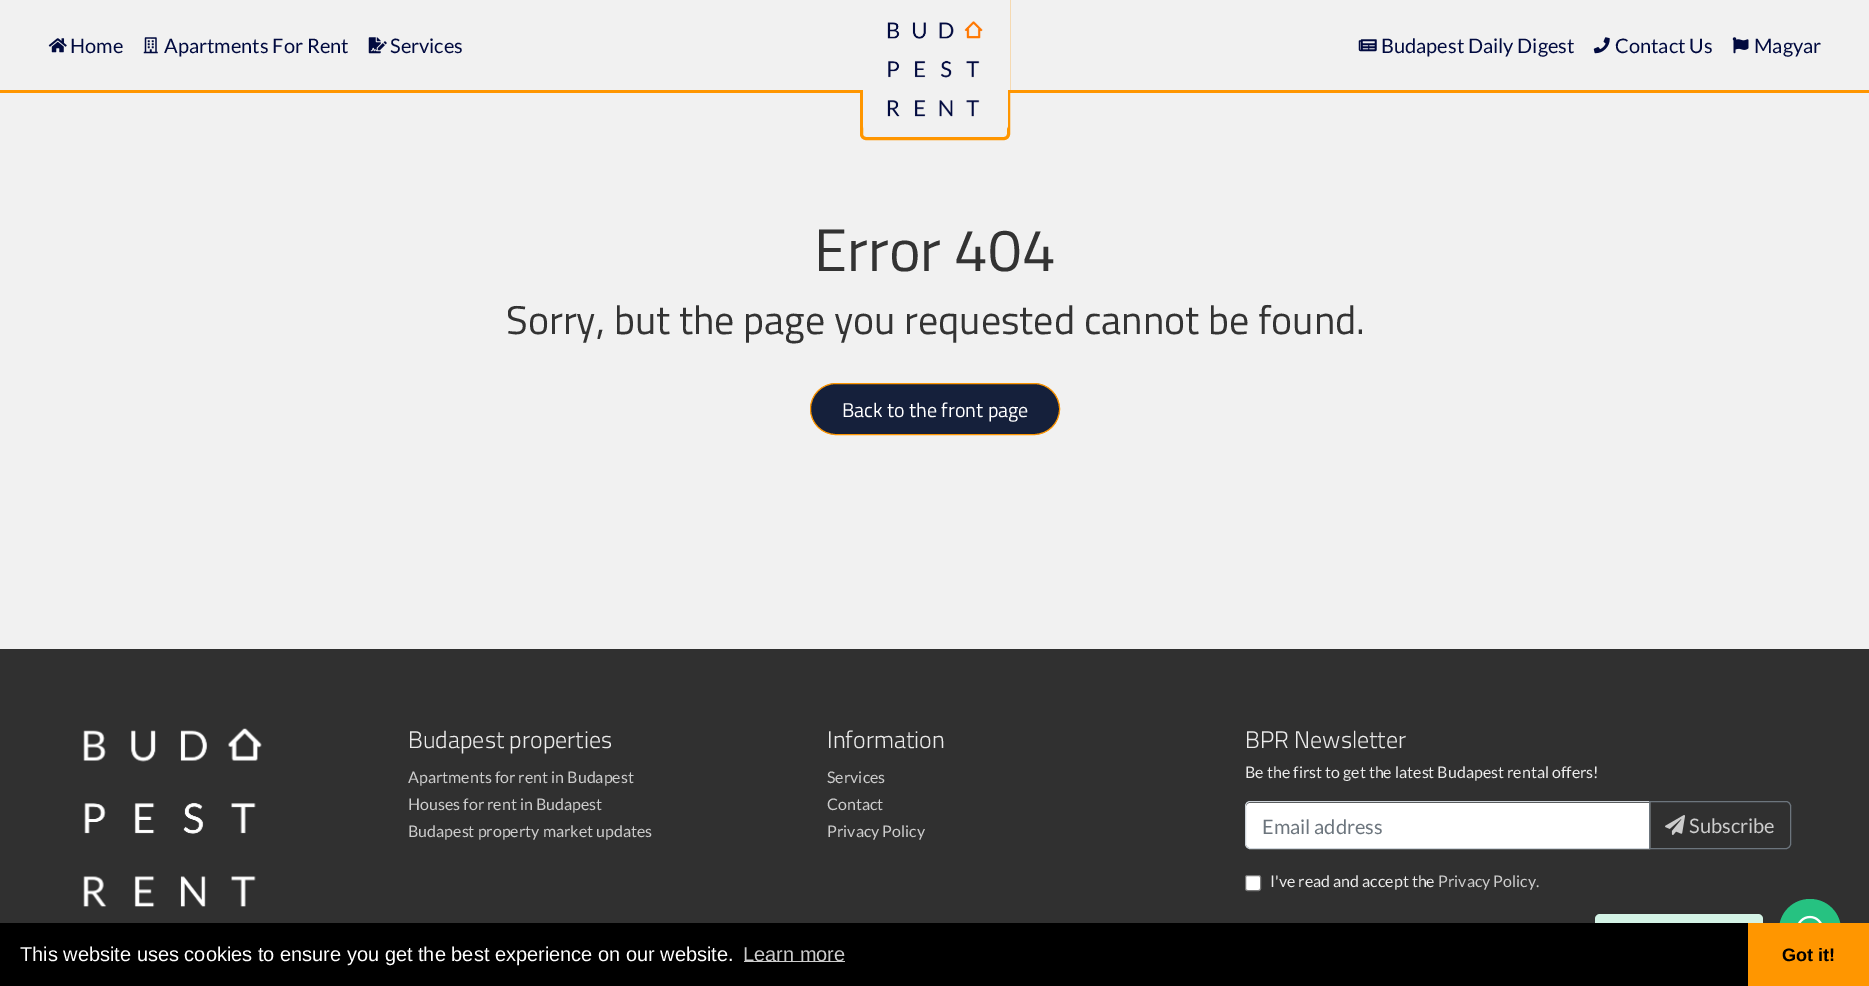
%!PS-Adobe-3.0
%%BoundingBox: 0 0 1869 986
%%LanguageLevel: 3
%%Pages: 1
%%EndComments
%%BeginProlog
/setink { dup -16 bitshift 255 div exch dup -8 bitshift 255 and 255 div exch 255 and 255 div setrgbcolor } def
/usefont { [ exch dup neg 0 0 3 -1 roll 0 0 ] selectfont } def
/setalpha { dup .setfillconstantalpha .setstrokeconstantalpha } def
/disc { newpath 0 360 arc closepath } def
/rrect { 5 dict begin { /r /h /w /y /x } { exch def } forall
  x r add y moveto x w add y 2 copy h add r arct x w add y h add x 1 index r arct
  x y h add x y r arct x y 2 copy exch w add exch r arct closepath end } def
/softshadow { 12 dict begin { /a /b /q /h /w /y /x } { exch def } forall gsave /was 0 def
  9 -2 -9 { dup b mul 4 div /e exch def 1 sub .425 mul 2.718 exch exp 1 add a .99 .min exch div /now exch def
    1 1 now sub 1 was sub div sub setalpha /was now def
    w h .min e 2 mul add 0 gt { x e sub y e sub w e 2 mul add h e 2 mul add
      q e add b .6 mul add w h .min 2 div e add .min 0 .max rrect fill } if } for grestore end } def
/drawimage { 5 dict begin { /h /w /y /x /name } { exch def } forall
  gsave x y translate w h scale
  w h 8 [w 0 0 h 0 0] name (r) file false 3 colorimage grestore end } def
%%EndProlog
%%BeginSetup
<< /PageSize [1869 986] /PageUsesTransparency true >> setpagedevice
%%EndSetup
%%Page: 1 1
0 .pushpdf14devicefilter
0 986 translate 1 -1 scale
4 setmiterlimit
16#F1F1F1 setink
0 0 1869 986 rectfill
16#FF9600 setink
3 setlinewidth
861.5 1.5 moveto 1008.5 1.5 lineto 1008.5 134 lineto 1008.5 136.5 1006.5 138.5 1004 138.5 curveto 866 138.5 lineto 863.5 138.5 861.5 136.5 861.5 134 curveto closepath stroke
16#F1F1F1 setink
860 0 150 90 rectfill
16#FF9600 setink
0 90 1869 3 rectfill
16#F1F1F1 setink
863 6 moveto 1008 6 lineto 1008 125 lineto 1008 128.5 1005.5 131 1002 131 curveto 869 131 lineto 865.5 131 863 128.5 863 125 curveto closepath fill
(img1.raw) 887 21 96 96 drawimage
(img2.raw) 48 38 19 15 drawimage
/Lato-Regular 20 usefont
16#010A3F setink
70 53 moveto (Home) show
(img3.raw) 143 37 15 17 drawimage
164 53 moveto (Apartments For Rent) show
(img4.raw) 368 37 19 17 drawimage
390 53 moveto (Services) show
(img5.raw) 1358 39 19 13 drawimage
1381 53 moveto (Budapest Daily Digest) show
(img6.raw) 1593 37 17 17 drawimage
1615 53 moveto (Contact Us) show
(img7.raw) 1732 37 17 17 drawimage
1754 53 moveto (Magyar) show
/TitilliumWeb-Regular 60 usefont
16#333333 setink
814 271 moveto (Error 404) show
/TitilliumWeb-Regular 40 usefont
506 334 moveto (Sorry, but the page you requested cannot be found.) show
16#15203B setink
810.5 383.5 249 51 25.5 rrect gsave fill grestore
16#FF9600 setink
1 setlinewidth
stroke
/TitilliumWeb-Regular 20 usefont
16#FFFFFF setink
842 417 moveto (Back to the front page) show
16#303030 setink
0 649 1869 274 rectfill
(img8.raw) 83 728 179 179 drawimage
/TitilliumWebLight-Light 24 usefont
16#EBEBEB setink
408 748 moveto (Budapest properties) show
/Lato-Regular 16 usefont
16#CCCCCC setink
[
    [(Apartments for rent in Budapest) 408 783]
    [(Houses for rent in Budapest) 408 810]
    [(Budapest property market updates) 408 837]
] { aload pop moveto show } forall
/TitilliumWebLight-Light 24 usefont
16#EBEBEB setink
827 748 moveto (Information) show
/Lato-Regular 16 usefont
16#CCCCCC setink
[
    [(Services) 827 783]
    [(Contact) 827 810]
    [(Privacy Policy) 827 837]
] { aload pop moveto show } forall
/TitilliumWebLight-Light 24 usefont
16#EBEBEB setink
1245 748 moveto (BPR Newsletter) show
/Lato-Regular 16 usefont
1245 778 moveto (Be the first to get the latest Budapest rental offers!) show
16#FFFFFF setink
1250 803 moveto 1649 803 lineto 1649 848 lineto 1250 848 lineto 1248 848 1246 846 1246 844 curveto 1246 807 lineto 1246 805 1248 803 1250 803 curveto closepath fill
16#CED4DA setink
1250 801.5 moveto 1649.5 801.5 lineto 1649.5 848.5 lineto 1250 848.5 lineto 1247.5 848.5 1245.5 846.5 1245.5 844 curveto 1245.5 806 lineto 1245.5 803.5 1247.5 801.5 1250 801.5 curveto closepath stroke
/Lato-Regular 20 usefont
16#6C757D setink
1262 834 moveto (Email address) show
1649.5 801.5 moveto 1786 801.5 lineto 1788.5 801.5 1790.5 803.5 1790.5 806 curveto 1790.5 844 lineto 1790.5 846.5 1788.5 848.5 1786 848.5 curveto 1649.5 848.5 lineto closepath stroke
(img9.raw) 1665 815 20 20 drawimage
16#CCCCCC setink
1689 833 moveto (Subscribe) show
16#FFFFFF setink
1245.5 875.5 15 15 2 rrect gsave fill grestore
16#767676 setink
stroke
/Lato-Regular 16 usefont
16#EBEBEB setink
1270 887 moveto (I've read and accept the) show
16#CCCCCC setink
1438 887 moveto (Privacy Policy.) show
16#D4F3E6 setink
1595 914 168 32 5 rrect fill
16#000000 setink
1779 900 62 63 31 1 0.15 softshadow
16#26C281 setink
1810 930 31 disc fill
(img10.raw) 1798 915 24 8 drawimage
16#000000 setink
0 923 1748 63 rectfill
/LiberationSans-Regular 20 usefont
16#FFFFFF setink
20 961 moveto (This website uses cookies to ensure you get the best experience on our website.) show
16#CCCCCC setink
744 961 101 1 rectfill
743 961 moveto (Learn more) show
16#FF9600 setink
1748 923 121 63 rectfill
/LiberationSans-Bold 18 usefont
16#000000 setink
1782 961 moveto (Got it!) show
.poppdf14devicefilter showpage
%%EOF
